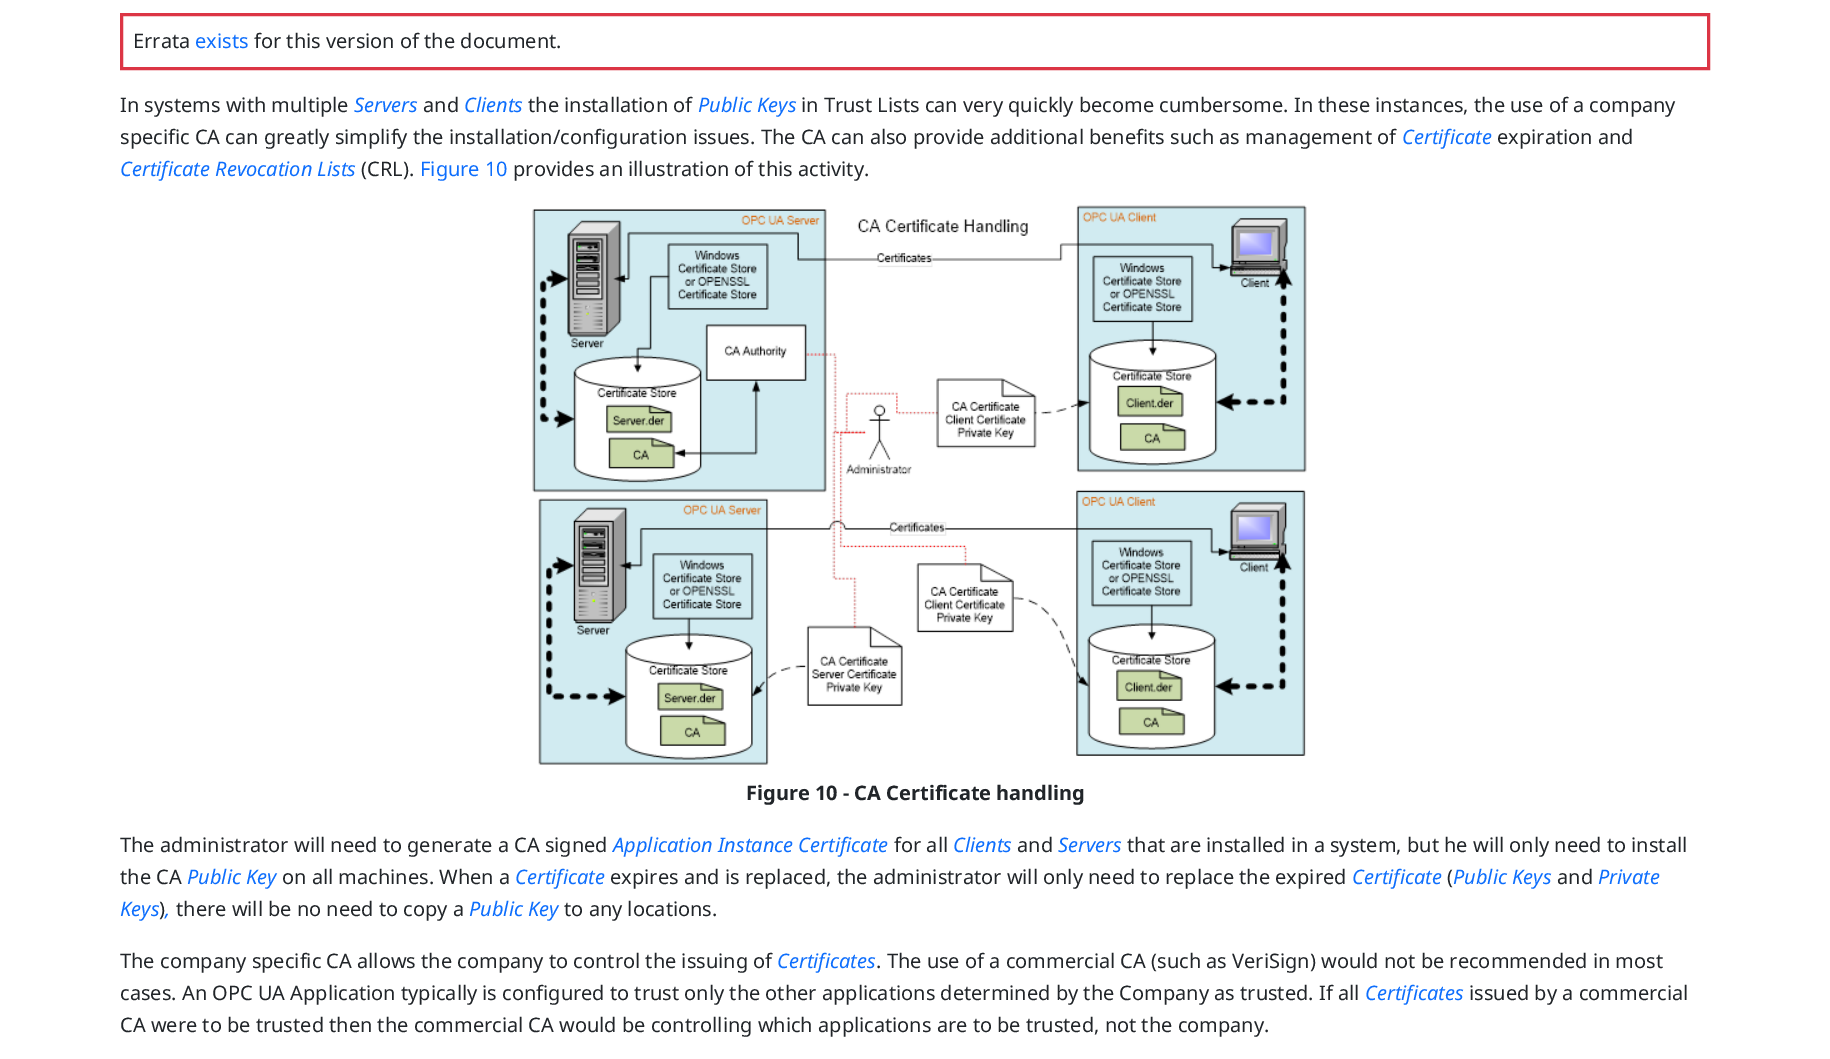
%!PS-Adobe-3.0
%%BoundingBox: 0 0 1830 1059
%%LanguageLevel: 3
%%Pages: 1
%%EndComments
%%BeginProlog
/setink { dup -16 bitshift 255 div exch dup -8 bitshift 255 and 255 div exch 255 and 255 div setrgbcolor } def
/usefont { [ exch dup neg 0 0 3 -1 roll 0 0 ] selectfont } def
/drawimage { 5 dict begin { /h /w /y /x /name } { exch def } forall
  gsave x y translate w h scale
  w h 8 [w 0 0 h 0 0] name (r) file false 3 colorimage grestore end } def
%%EndProlog
%%BeginSetup
<< /PageSize [1830 1059] >> setpagedevice
%%EndSetup
%%Page: 1 1
0 1059 translate 1 -1 scale
4 setmiterlimit
16#FFFFFF setink
0 0 1830 1059 rectfill
16#DC3545 setink
3 setlinewidth
121.5 14.5 1587 54 rectstroke
/NotoSans-Regular 20 usefont
16#212529 setink
133 48 moveto (Errata) show
16#0D6EFD setink
195 48 moveto (exists) show
16#212529 setink
254 48 moveto (for this version of the document.) show
120 112 moveto (In systems with multiple) show
/NotoSans-Italic 20 usefont
16#0D6EFD setink
354 112 moveto (Servers) show
/NotoSans-Regular 20 usefont
16#212529 setink
423 112 moveto (and) show
/NotoSans-Italic 20 usefont
16#0D6EFD setink
464 112 moveto (Clients) show
/NotoSans-Regular 20 usefont
16#212529 setink
528 112 moveto (the installation of) show
/NotoSans-Italic 20 usefont
16#0D6EFD setink
698 112 moveto (Public Keys) show
/NotoSans-Regular 20 usefont
16#212529 setink
801 112 moveto (in Trust Lists can very quickly become cumbersome. In these instances, the use of a company) show
120 144 moveto (specific CA can greatly simplify the installation/configuration issues. The CA can also provide additional benefits such as management of) show
/NotoSans-Italic 20 usefont
16#0D6EFD setink
1402 144 moveto (Certificate) show
/NotoSans-Regular 20 usefont
16#212529 setink
1497 144 moveto (expiration and) show
/NotoSans-Italic 20 usefont
16#0D6EFD setink
120 176 moveto (Certificate Revocation Lists) show
/NotoSans-Regular 20 usefont
16#212529 setink
361 176 moveto (\(CRL\).) show
16#0D6EFD setink
420 176 moveto (Figure 10) show
16#212529 setink
513 176 moveto (provides an illustration of this activity.) show
(img1.raw) 532 205 775 560 drawimage
/NotoSans-Bold 20 usefont
746 800 moveto (Figure 10 - CA Certificate handling) show
/NotoSans-Regular 20 usefont
120 852 moveto (The administrator will need to generate a CA signed) show
/NotoSans-Italic 20 usefont
16#0D6EFD setink
613 852 moveto (Application Instance Certificate) show
/NotoSans-Regular 20 usefont
16#212529 setink
894 852 moveto (for all) show
/NotoSans-Italic 20 usefont
16#0D6EFD setink
953 852 moveto (Clients) show
/NotoSans-Regular 20 usefont
16#212529 setink
1017 852 moveto (and) show
/NotoSans-Italic 20 usefont
16#0D6EFD setink
1058 852 moveto (Servers) show
/NotoSans-Regular 20 usefont
16#212529 setink
1127 852 moveto (that are installed in a system, but he will only need to install) show
120 884 moveto (the CA) show
/NotoSans-Italic 20 usefont
16#0D6EFD setink
187 884 moveto (Public Key) show
/NotoSans-Regular 20 usefont
16#212529 setink
282 884 moveto (on all machines. When a) show
/NotoSans-Italic 20 usefont
16#0D6EFD setink
515 884 moveto (Certificate) show
/NotoSans-Regular 20 usefont
16#212529 setink
610 884 moveto (expires and is replaced, the administrator will only need to replace the expired) show
/NotoSans-Italic 20 usefont
16#0D6EFD setink
1352 884 moveto (Certificate) show
/NotoSans-Regular 20 usefont
16#212529 setink
1447 884 moveto (\() show
/NotoSans-Italic 20 usefont
16#0D6EFD setink
1453 884 moveto (Public Keys) show
/NotoSans-Regular 20 usefont
16#212529 setink
1557 884 moveto (and) show
/NotoSans-Italic 20 usefont
16#0D6EFD setink
1598 884 moveto (Private) show
120 916 moveto (Keys) show
/NotoSans-Regular 20 usefont
16#212529 setink
159 916 moveto (\)) show
/NotoSans-Italic 20 usefont
16#0D6EFD setink
165 916 moveto (,) show
/NotoSans-Regular 20 usefont
16#212529 setink
176 916 moveto (there will be no need to copy a) show
/NotoSans-Italic 20 usefont
16#0D6EFD setink
469 916 moveto (Public Key) show
/NotoSans-Regular 20 usefont
16#212529 setink
564 916 moveto (to any locations.) show
120 968 moveto (The company specific CA allows the company to control the issuing of) show
/NotoSans-Italic 20 usefont
16#0D6EFD setink
777 968 moveto (Certificates) show
/NotoSans-Regular 20 usefont
16#212529 setink
876 968 moveto (. The use of a commercial CA \(such as VeriSign\) would not be recommended in most) show
120 1000 moveto (cases. An OPC UA Application typically is configured to trust only the other applications determined by the Company as trusted. If all) show
/NotoSans-Italic 20 usefont
16#0D6EFD setink
1365 1000 moveto (Certificates) show
/NotoSans-Regular 20 usefont
16#212529 setink
1469 1000 moveto (issued by a commercial) show
120 1032 moveto (CA were to be trusted then the commercial CA would be controlling which applications are to be trusted, not the company.) show
showpage
%%EOF
